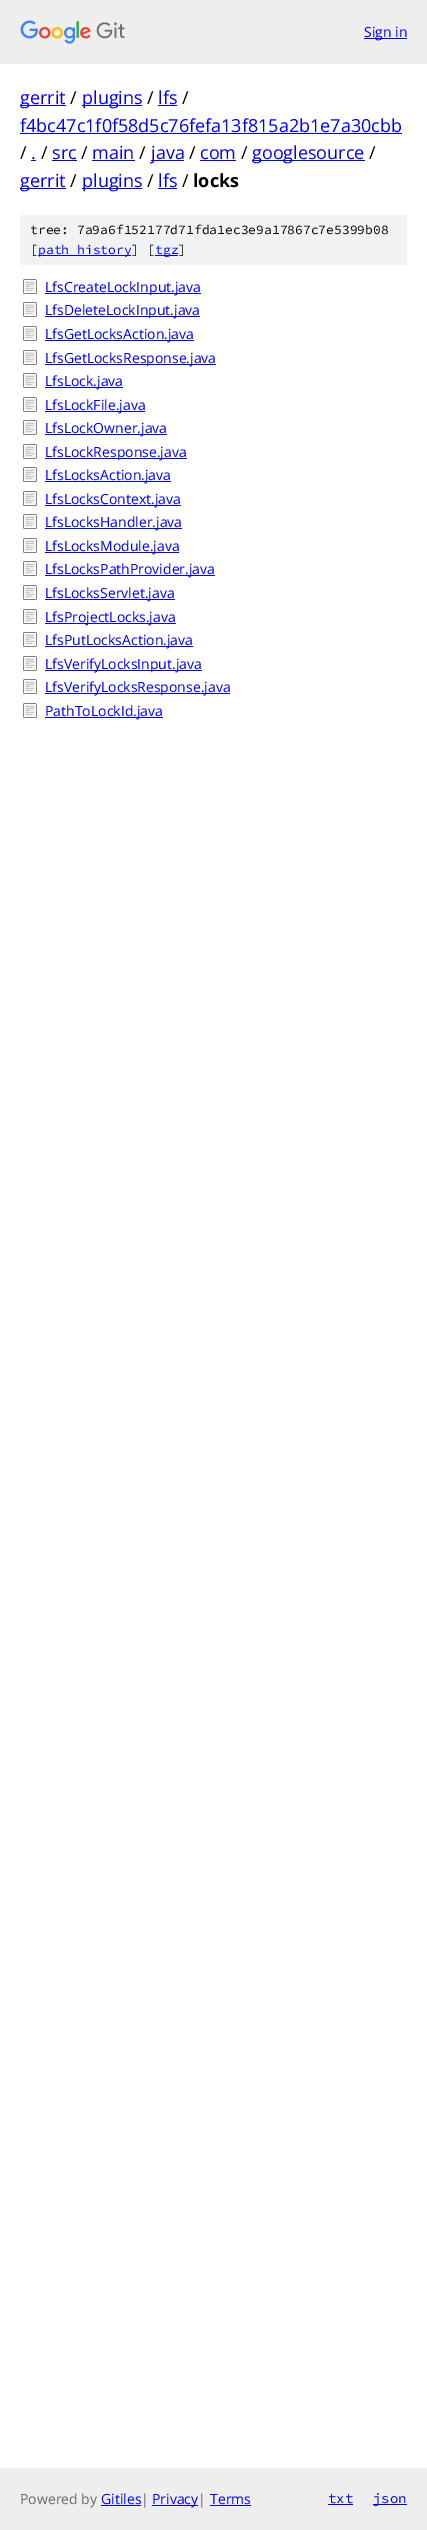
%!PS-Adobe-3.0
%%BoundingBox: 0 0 427 2530
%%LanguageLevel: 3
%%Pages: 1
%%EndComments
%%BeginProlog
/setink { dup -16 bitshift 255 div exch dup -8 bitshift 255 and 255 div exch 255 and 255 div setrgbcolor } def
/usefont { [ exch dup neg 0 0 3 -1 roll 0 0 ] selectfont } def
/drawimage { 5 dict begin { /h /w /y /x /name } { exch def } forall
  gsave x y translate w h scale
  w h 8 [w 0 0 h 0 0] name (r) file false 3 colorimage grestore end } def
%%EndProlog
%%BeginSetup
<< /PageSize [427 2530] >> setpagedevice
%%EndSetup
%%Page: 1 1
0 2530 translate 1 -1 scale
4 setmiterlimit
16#FFFFFF setink
0 0 427 2530 rectfill
16#EEEEEE setink
0 0 427 64 rectfill
(img1.raw) 20 20 105 24 drawimage
16#0000EE setink
364 38 43 1 rectfill
/OpenSans-Regular 14 usefont
364 37 moveto (Sign in) show
20 105 46 1 rectfill
/OpenSans-Regular 18 usefont
20 104 moveto (gerrit) show
16#000000 setink
70 104 moveto (/) show
16#0000EE setink
82 105 60 1 rectfill
82 104 moveto (plugins) show
16#000000 setink
147 104 moveto (/) show
16#0000EE setink
158 104 moveto (lfs) show
158 105 19 1 rectfill
16#000000 setink
182 104 moveto (/) show
16#0000EE setink
20 132 moveto (f4bc47c1f0f58d5c76fefa13f815a2b1e7a30cbb) show
20 133 382 1 rectfill
16#000000 setink
20 159 moveto (/) show
16#0000EE setink
31 159 moveto (.) show
31 160 5 1 rectfill
16#000000 setink
41 159 moveto (/) show
16#0000EE setink
52 159 moveto (src) show
52 160 25 1 rectfill
16#000000 setink
81 159 moveto (/) show
16#0000EE setink
92 159 moveto (main) show
92 160 43 1 rectfill
16#000000 setink
139 159 moveto (/) show
16#0000EE setink
151 160 33 1 rectfill
151 159 moveto (java) show
16#000000 setink
189 159 moveto (/) show
16#0000EE setink
200 159 moveto (com) show
200 160 36 1 rectfill
16#000000 setink
241 159 moveto (/) show
16#0000EE setink
252 160 113 1 rectfill
252 159 moveto (googlesource) show
16#000000 setink
369 159 moveto (/) show
16#0000EE setink
20 188 46 1 rectfill
20 187 moveto (gerrit) show
16#000000 setink
70 187 moveto (/) show
16#0000EE setink
82 188 60 1 rectfill
82 187 moveto (plugins) show
16#000000 setink
147 187 moveto (/) show
16#0000EE setink
158 187 moveto (lfs) show
158 188 19 1 rectfill
16#000000 setink
182 187 moveto (/) show
/OpenSans-Bold 18 usefont
193 187 moveto (locks) show
16#F1F2F3 setink
20 215 387 50 rectfill
/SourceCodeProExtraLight-ExtraLight 13 usefont
16#000000 setink
30 234 moveto (tree: 7a9a6f152177d71fda1ec3e9a17867c7e5399b08) show
30 254 moveto ([) show
16#0000EE setink
38 255 93 1 rectfill
38 254 moveto (path history) show
16#000000 setink
131 254 moveto (] [) show
16#0000EE setink
155 255 23 1 rectfill
155 254 moveto (tgz) show
16#000000 setink
178 254 moveto (]) show
(img2.raw) 23 279 14 15 drawimage
16#0000EE setink
45 293 156 1 rectfill
/OpenSans-Regular 14 usefont
45 292 moveto (LfsCreateLockInput.java) show
(img2.raw) 23 302 14 15 drawimage
45 316 155 1 rectfill
45 315 moveto (LfsDeleteLockInput.java) show
(img2.raw) 23 326 14 15 drawimage
45 340 149 1 rectfill
45 339 moveto (LfsGetLocksAction.java) show
(img2.raw) 23 350 14 15 drawimage
45 364 171 1 rectfill
45 363 moveto (LfsGetLocksResponse.java) show
(img2.raw) 23 373 14 15 drawimage
45 387 78 1 rectfill
45 386 moveto (LfsLock.java) show
(img2.raw) 23 397 14 15 drawimage
45 411 100 1 rectfill
45 410 moveto (LfsLockFile.java) show
(img2.raw) 23 420 14 15 drawimage
45 434 122 1 rectfill
45 433 moveto (LfsLockOwner.java) show
(img2.raw) 23 444 14 15 drawimage
45 458 142 1 rectfill
45 457 moveto (LfsLockResponse.java) show
(img2.raw) 23 467 14 15 drawimage
45 481 126 1 rectfill
45 480 moveto (LfsLocksAction.java) show
(img2.raw) 23 491 14 15 drawimage
45 505 136 1 rectfill
45 504 moveto (LfsLocksContext.java) show
(img2.raw) 23 514 14 15 drawimage
45 528 137 1 rectfill
45 527 moveto (LfsLocksHandler.java) show
(img2.raw) 23 538 14 15 drawimage
45 552 134 1 rectfill
45 551 moveto (LfsLocksModule.java) show
(img2.raw) 23 561 14 15 drawimage
45 575 170 1 rectfill
45 574 moveto (LfsLocksPathProvider.java) show
(img2.raw) 23 585 14 15 drawimage
45 599 130 1 rectfill
45 598 moveto (LfsLocksServlet.java) show
(img2.raw) 23 609 14 15 drawimage
45 623 131 1 rectfill
45 622 moveto (LfsProjectLocks.java) show
(img2.raw) 23 632 14 15 drawimage
45 646 148 1 rectfill
45 645 moveto (LfsPutLocksAction.java) show
(img2.raw) 23 656 14 15 drawimage
45 670 157 1 rectfill
45 669 moveto (LfsVerifyLocksInput.java) show
(img2.raw) 23 679 14 15 drawimage
45 693 185 1 rectfill
45 692 moveto (LfsVerifyLocksResponse.java) show
(img2.raw) 23 703 14 15 drawimage
45 717 118 1 rectfill
45 716 moveto (PathToLockId.java) show
16#EEEEEE setink
0 2468 427 62 rectfill
16#666666 setink
20 2504 moveto (Powered by) show
16#0000EE setink
101 2504 moveto (Gitiles) show
101 2505 40 1 rectfill
16#666666 setink
141 2504 moveto (|) show
16#0000EE setink
152 2505 46 1 rectfill
152 2504 moveto (Privacy) show
16#666666 setink
198 2504 moveto (|) show
16#0000EE setink
210 2504 moveto (Terms) show
210 2505 41 1 rectfill
/SourceCodeProExtraLight-ExtraLight 14 usefont
328 2503 moveto (txt) show
328 2504 25 1 rectfill
373 2504 34 1 rectfill
373 2503 moveto (json) show
showpage
%%EOF
